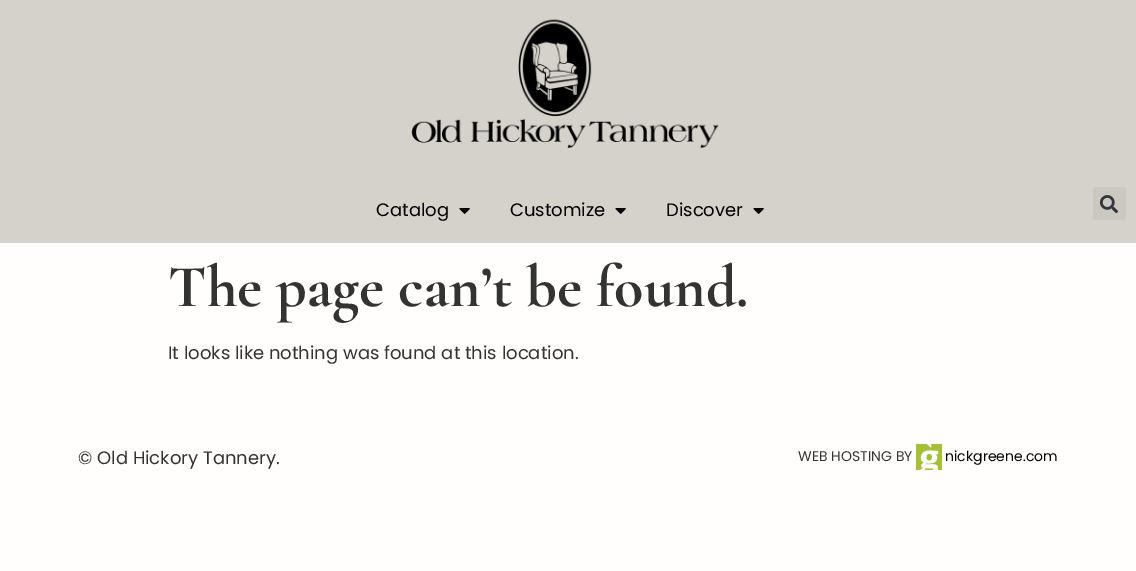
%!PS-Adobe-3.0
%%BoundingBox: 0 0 1136 571
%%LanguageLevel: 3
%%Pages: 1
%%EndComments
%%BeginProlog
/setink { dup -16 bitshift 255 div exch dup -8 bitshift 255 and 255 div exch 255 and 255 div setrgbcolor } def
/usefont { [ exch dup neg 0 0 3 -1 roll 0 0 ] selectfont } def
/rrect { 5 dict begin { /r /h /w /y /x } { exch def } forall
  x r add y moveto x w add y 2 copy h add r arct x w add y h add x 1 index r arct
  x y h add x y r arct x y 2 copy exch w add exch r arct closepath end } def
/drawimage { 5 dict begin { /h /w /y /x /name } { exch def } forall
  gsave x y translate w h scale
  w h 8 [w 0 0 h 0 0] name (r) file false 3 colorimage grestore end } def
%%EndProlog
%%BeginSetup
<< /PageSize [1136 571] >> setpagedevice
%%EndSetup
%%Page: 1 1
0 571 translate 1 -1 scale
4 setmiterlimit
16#FFFEFC setink
0 0 1136 571 rectfill
16#D5D2CB setink
0 0 1136 243 rectfill
(img1.raw) 411 19 308 129 drawimage
/Poppins-Regular 18 usefont
16#000000 setink
376 216 moveto (Catalog) show
(img2.raw) 459 208 11 6 drawimage
510 216 moveto (Customize) show
(img2.raw) 615 208 11 6 drawimage
666 216 moveto (Discover) show
(img2.raw) 753 208 11 6 drawimage
16#CAC8C1 setink
1093 187 33 33 3 rrect fill
(img3.raw) 1099 195 19 19 drawimage
/CormorantGaramond-Bold 60 usefont
16#333333 setink
168 306 moveto (The page can’t be found.) show
/Poppins-Regular 18 usefont
168 359 moveto (It looks like nothing was found at this location.) show
78 464 moveto (© Old Hickory Tannery.) show
/Poppins-Regular 14 usefont
798 461 moveto (WEB HOSTING BY) show
(img4.raw) 916 444 26 26 drawimage
16#000000 setink
945 461 moveto (nickgreene.com) show
showpage
%%EOF
